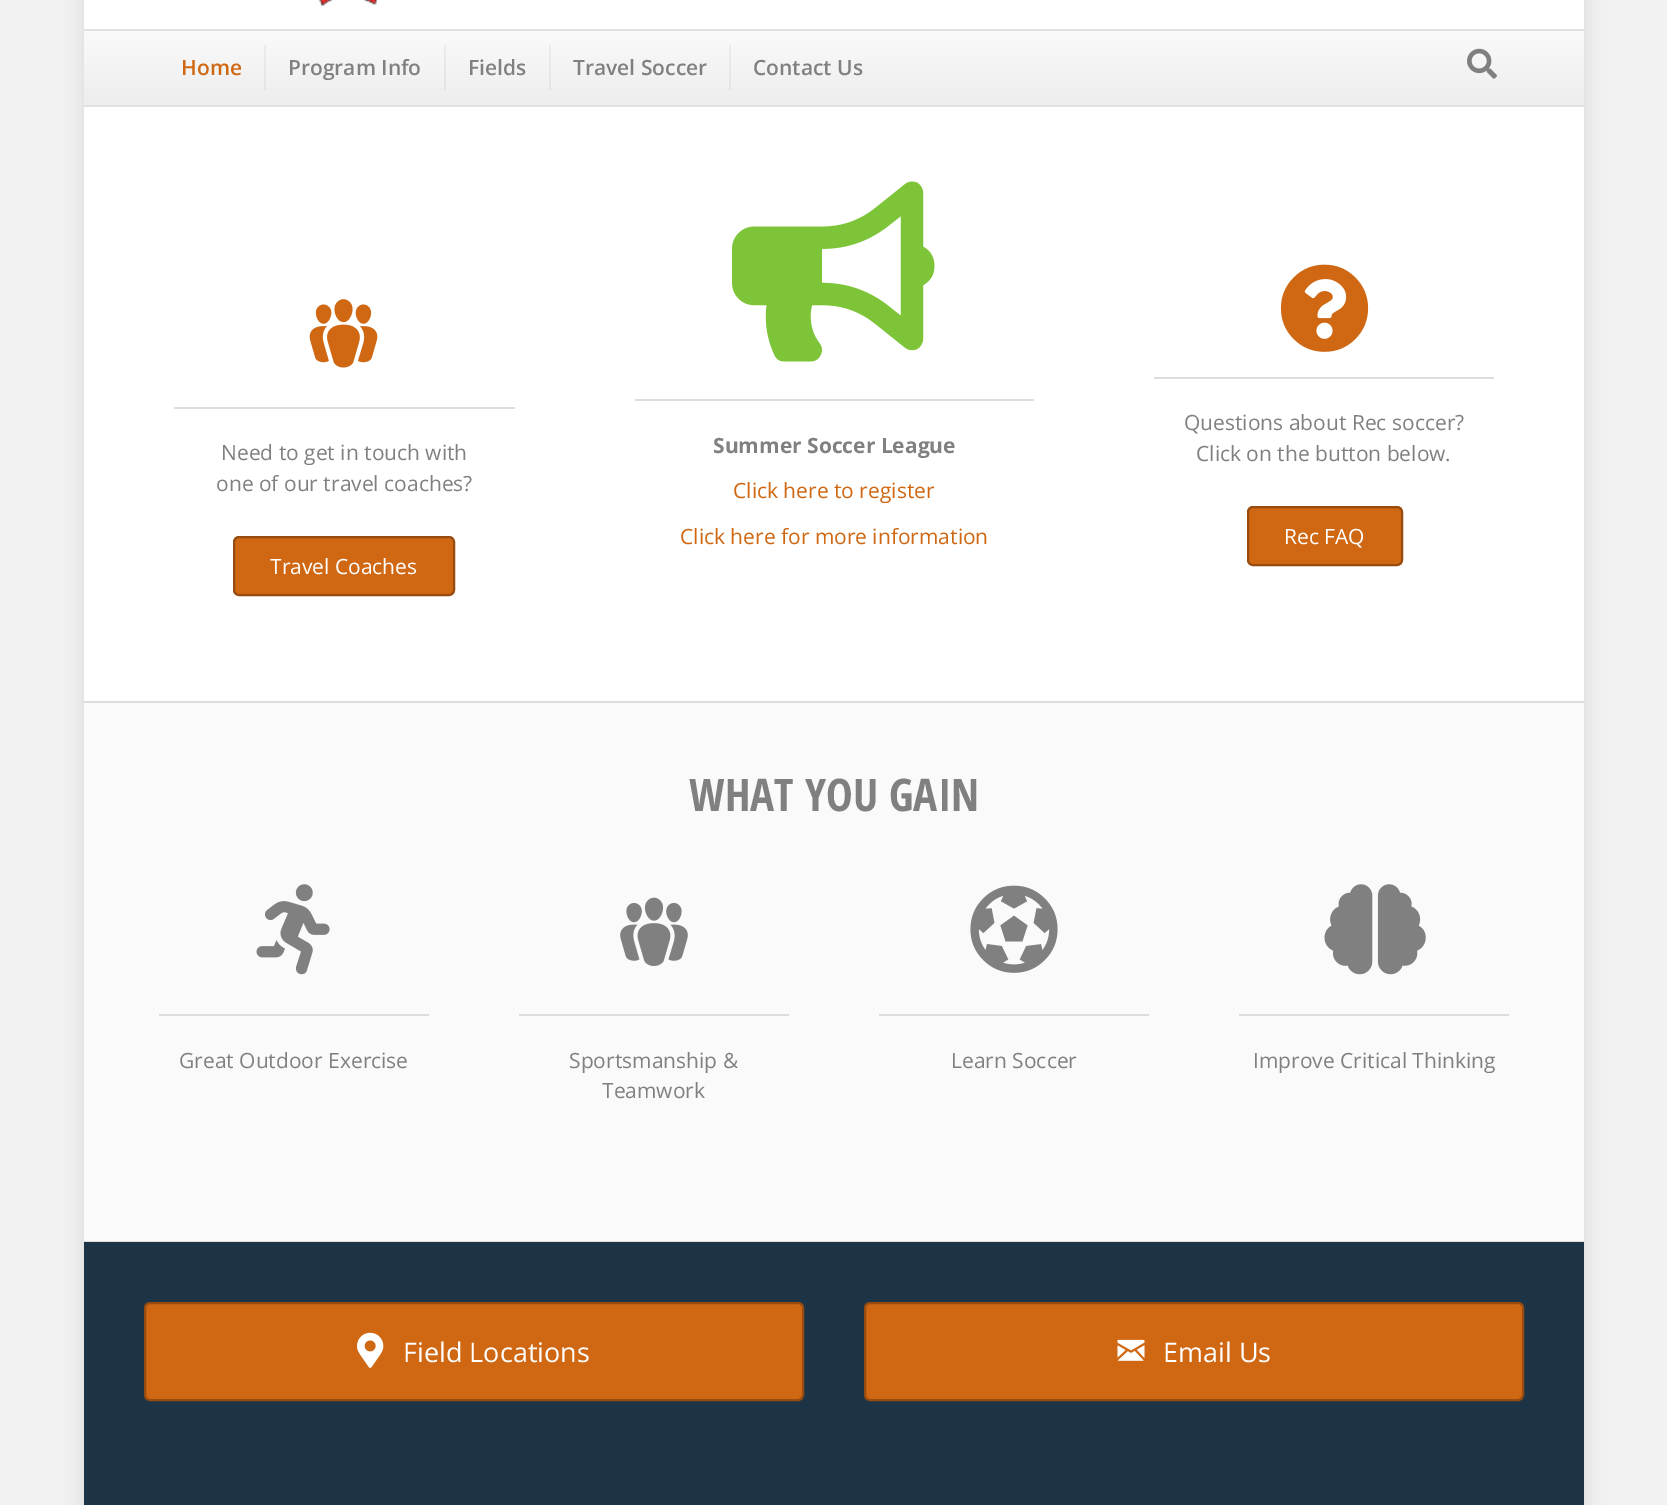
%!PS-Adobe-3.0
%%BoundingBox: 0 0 1667 1505
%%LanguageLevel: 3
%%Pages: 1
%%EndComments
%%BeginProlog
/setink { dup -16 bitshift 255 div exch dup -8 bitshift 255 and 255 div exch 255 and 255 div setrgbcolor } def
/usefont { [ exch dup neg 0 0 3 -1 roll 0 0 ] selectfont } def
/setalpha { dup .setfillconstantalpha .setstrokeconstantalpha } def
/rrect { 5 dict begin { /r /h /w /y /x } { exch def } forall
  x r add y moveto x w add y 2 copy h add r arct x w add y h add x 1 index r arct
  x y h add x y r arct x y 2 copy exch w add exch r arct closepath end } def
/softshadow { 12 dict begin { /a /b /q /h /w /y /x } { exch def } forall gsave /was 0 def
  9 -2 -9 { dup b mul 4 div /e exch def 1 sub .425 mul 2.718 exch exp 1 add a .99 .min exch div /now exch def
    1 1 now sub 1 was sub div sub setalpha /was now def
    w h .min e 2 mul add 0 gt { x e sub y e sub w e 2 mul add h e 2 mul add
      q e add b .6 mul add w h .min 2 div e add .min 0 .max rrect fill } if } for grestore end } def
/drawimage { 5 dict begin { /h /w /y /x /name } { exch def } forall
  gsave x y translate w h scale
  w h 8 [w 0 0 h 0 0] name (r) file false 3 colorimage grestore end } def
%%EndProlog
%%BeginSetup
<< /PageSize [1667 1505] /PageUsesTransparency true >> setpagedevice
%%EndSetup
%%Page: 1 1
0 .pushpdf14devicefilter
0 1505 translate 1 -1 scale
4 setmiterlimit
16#F2F2F2 setink
0 0 1667 1505 rectfill
16#D9D9D9 setink
84 -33 1500 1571 0 11 1 softshadow
16#FFFFFF setink
84 0 1500 29 rectfill
(img1.raw) 319 0 59 6 drawimage
gsave 84 31 moveto 1584 31 lineto 1584 105 lineto 84 105 lineto closepath clip newpath
<< /ShadingType 2 /ColorSpace /DeviceRGB /Coords [834 30 834 105] /Extend [true true] /Function << /FunctionType 2 /Domain [0 1] /C0 [0.98 0.98 0.98] /C1 [0.929 0.929 0.929] /N 1 >> >> shfill grestore
gsave 729 45 moveto 731 45 lineto 731 90 lineto 729 90 lineto closepath clip newpath
<< /ShadingType 2 /ColorSpace /DeviceRGB /Coords [834 30 834 105] /Extend [true true] /Function << /FunctionType 2 /Domain [0 1] /C0 [0.933 0.933 0.933] /C1 [0.886 0.886 0.886] /N 1 >> >> shfill grestore
gsave 549 45 moveto 551 45 lineto 551 90 lineto 549 90 lineto closepath clip newpath
<< /ShadingType 2 /ColorSpace /DeviceRGB /Coords [834 30 834 105] /Extend [true true] /Function << /FunctionType 2 /Domain [0 1] /C0 [0.933 0.933 0.933] /C1 [0.886 0.886 0.886] /N 1 >> >> shfill grestore
gsave 444 45 moveto 446 45 lineto 446 90 lineto 444 90 lineto closepath clip newpath
<< /ShadingType 2 /ColorSpace /DeviceRGB /Coords [834 30 834 105] /Extend [true true] /Function << /FunctionType 2 /Domain [0 1] /C0 [0.933 0.933 0.933] /C1 [0.886 0.886 0.886] /N 1 >> >> shfill grestore
gsave 264 45 moveto 266 45 lineto 266 90 lineto 264 90 lineto closepath clip newpath
<< /ShadingType 2 /ColorSpace /DeviceRGB /Coords [834 30 834 105] /Extend [true true] /Function << /FunctionType 2 /Domain [0 1] /C0 [0.933 0.933 0.933] /C1 [0.886 0.886 0.886] /N 1 >> >> shfill grestore
16#E1E1E1 setink
84 29 1500 2 rectfill
84 105 1500 2 rectfill
/OpenSans-SemiBold 21 usefont
16#CF6713 setink
181 75 moveto (Home) show
16#808080 setink
[
    [(Program Info) 288 75]
    [(Fields) 468 75]
    [(Travel Soccer) 573 75]
    [(Contact Us) 753 75]
] { aload pop moveto show } forall
(img2.raw) 1467 48 30 31 drawimage
16#FFFFFF setink
84 107 1500 594 rectfill
(img3.raw) 309 299 69 69 drawimage
16#DDDDDD setink
174 407 341 2 rectfill
/OpenSans-Regular 21 usefont
16#808080 setink
221 460 moveto (Need to get in touch with) show
216 491 moveto (one of our travel coaches?) show
16#CF6713 setink
234 537 220 58 5 rrect gsave fill grestore
16#974B0E setink
2 setlinewidth
stroke
16#FFFFFF setink
270 574 moveto (Travel Coaches) show
(img4.raw) 732 181 203 181 drawimage
16#DDDDDD setink
635 399 399 2 rectfill
/OpenSans-Bold 21 usefont
16#808080 setink
713 453 moveto (Summer Soccer League) show
/OpenSans-Regular 21 usefont
16#CF6713 setink
733 498 moveto (Click here to register) show
680 544 moveto (Click here for more information) show
(img5.raw) 1280 264 89 88 drawimage
16#DDDDDD setink
1154 377 340 2 rectfill
16#808080 setink
1184 430 moveto (Questions about Rec soccer?) show
1196 461 moveto (Click on the button below.) show
16#CF6713 setink
1248 507 154 58 5 rrect gsave fill grestore
16#974B0E setink
stroke
16#FFFFFF setink
1284 544 moveto (Rec FAQ) show
[
    [84 703 1500 538 16#FAFAFA]
    [84 701 1500 2 16#DDDDDD]
    [84 1241 1500 1 16#DDDDDD]
] { aload pop setink rectfill } forall
/OpenSansCondensed-Bold 45 usefont
16#808080 setink
689 811 moveto (WHAT YOU GAIN) show
(img6.raw) 256 884 74 91 drawimage
16#DDDDDD setink
159 1014 270 2 rectfill
/OpenSans-Regular 21 usefont
16#808080 setink
179 1068 moveto (Great Outdoor Exercise) show
(img7.raw) 620 897 68 69 drawimage
16#DDDDDD setink
519 1014 270 2 rectfill
16#808080 setink
569 1068 moveto (Sportsmanship &) show
602 1098 moveto (Teamwork) show
(img8.raw) 970 885 88 88 drawimage
16#DDDDDD setink
879 1014 270 2 rectfill
16#808080 setink
951 1068 moveto (Learn Soccer) show
(img9.raw) 1324 884 102 91 drawimage
16#DDDDDD setink
1239 1014 270 2 rectfill
16#808080 setink
1253 1068 moveto (Improve Critical Thinking) show
16#1D3447 setink
84 1242 1500 263 rectfill
16#CF6713 setink
145 1303 658 97 5 rrect gsave fill grestore
16#974B0E setink
stroke
(img10.raw) 357 1332 27 36 drawimage
/OpenSans-Regular 27 usefont
16#FFFFFF setink
403 1362 moveto (Field Locations) show
16#CF6713 setink
865 1303 658 97 5 rrect gsave fill grestore
16#974B0E setink
stroke
(img11.raw) 1117 1339 28 22 drawimage
16#FFFFFF setink
1163 1362 moveto (Email Us) show
.poppdf14devicefilter showpage
%%EOF
